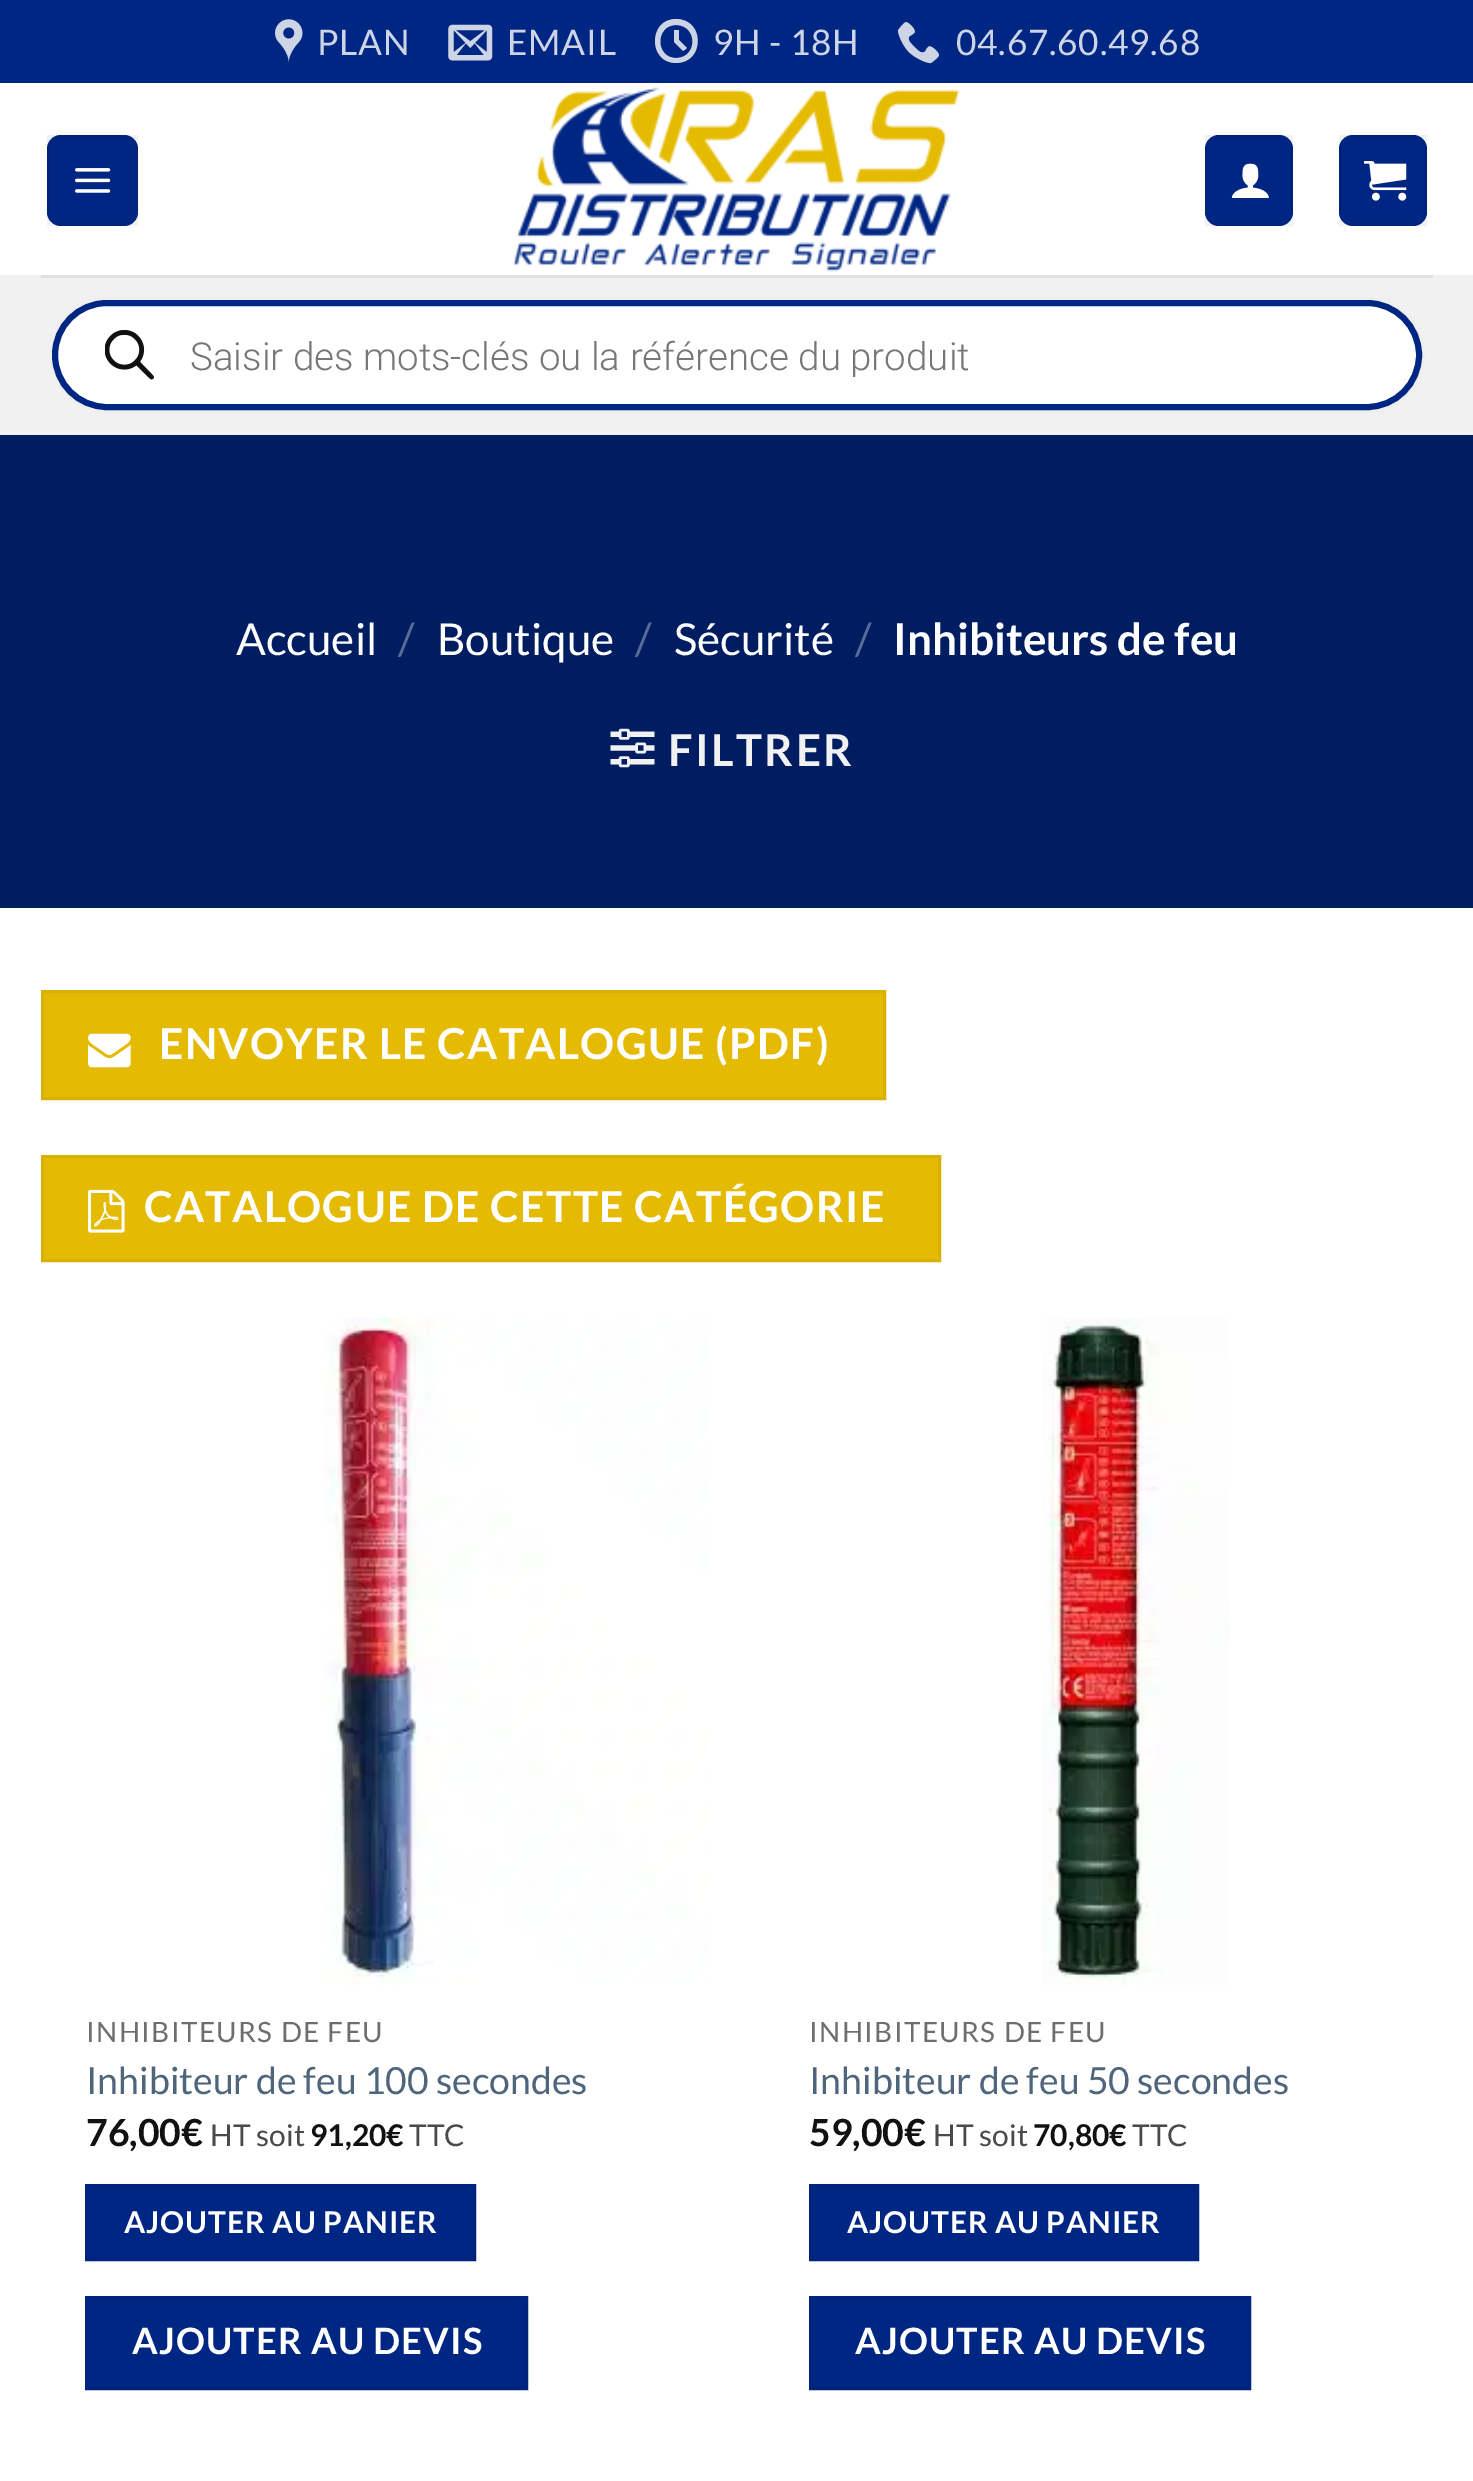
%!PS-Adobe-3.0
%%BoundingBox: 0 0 1473 2481
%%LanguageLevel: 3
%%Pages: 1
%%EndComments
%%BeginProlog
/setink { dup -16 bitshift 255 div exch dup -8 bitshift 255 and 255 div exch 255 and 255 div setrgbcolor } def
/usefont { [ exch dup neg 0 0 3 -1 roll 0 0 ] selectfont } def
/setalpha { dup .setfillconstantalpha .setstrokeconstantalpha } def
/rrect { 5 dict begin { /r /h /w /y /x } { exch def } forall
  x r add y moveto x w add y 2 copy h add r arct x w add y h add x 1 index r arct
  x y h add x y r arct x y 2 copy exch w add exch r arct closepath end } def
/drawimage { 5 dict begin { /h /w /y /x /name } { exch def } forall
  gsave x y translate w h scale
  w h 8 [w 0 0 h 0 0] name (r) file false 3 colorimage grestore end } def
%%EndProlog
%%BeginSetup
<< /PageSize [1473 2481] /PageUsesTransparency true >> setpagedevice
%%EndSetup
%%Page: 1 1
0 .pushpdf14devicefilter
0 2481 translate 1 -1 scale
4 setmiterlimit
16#FFFFFF setink
0 0 1473 2481 rectfill
16#002683 setink
0 0 1473 83 rectfill
(img1.raw) 275 19 28 44 drawimage
/Lato-Regular 35.25 usefont
16#CCD4E6 setink
317 55 moveto 0.75 0 (PLAN) ashow
(img2.raw) 448 24 45 37 drawimage
507 55 moveto 0.75 0 (EMAIL) ashow
683 51 moveto 674 42 lineto 674 30 lineto 679 30 lineto 679 40 lineto 687 48 lineto closepath 676 19 moveto 648 19 648 63 676 63 curveto 705 63 705 19 676 19 curveto closepath 676 58 moveto 655 58 655 25 676 25 curveto 698 25 698 58 676 58 curveto closepath fill
713 55 moveto 0.75 0 (9H - 18H) ashow
(img3.raw) 897 22 43 42 drawimage
956 55 moveto 0.75 0 (04.67.60.49.68) ashow
16#002683 setink
47 135 91 91 14 rrect fill
0.05 setalpha
16#000000 setink
3 setlinewidth
48.5 136.5 88 88 rectstroke
1 setalpha
(img4.raw) 75 168 36 25 drawimage
(img5.raw) 513 87 447 185 drawimage
16#002683 setink
1205 135 88 91 14 rrect fill
0.05 setalpha
16#000000 setink
1206.5 136.5 85 88 rectstroke
1 setalpha
(img6.raw) 1231 163 38 35 drawimage
16#002683 setink
1339 135 88 91 14 rrect fill
0.05 setalpha
16#000000 setink
1340.5 136.5 85 88 rectstroke
1 setalpha
(img7.raw) 1364 161 43 40 drawimage
16#F1F1F1 setink
0 275 1473 160 rectfill
16#E0E0E0 setink
41 275 1392 3 rectfill
16#EEEEEE setink
51.5 298.5 1372 113 56.5 rrect stroke
16#FFFFFF setink
55 303 1364 104 52 rrect gsave fill grestore
16#002683 setink
6 setlinewidth
stroke
(img8.raw) 105 330 49 50 drawimage
gsave
190 333 1160 44 rectclip
/Roboto-Light 38.5 usefont
16#777777 setink
190 370 moveto (Saisir des mots-clés ou la référence du produit) show
grestore
16#001D62 setink
0 435 1473 473 rectfill
/Lato-Regular 44 usefont
16#FFFFFF setink
236 655 moveto (Accueil) show
16#596C99 setink
398 655 moveto (/) show
16#FFFFFF setink
437 655 moveto (Boutique) show
16#596C99 setink
635 655 moveto (/) show
16#FFFFFF setink
674 655 moveto (Sécurité) show
16#596C99 setink
855 655 moveto (/) show
/Lato-Bold 44 usefont
16#FFFFFF setink
893 655 moveto (Inhibiteurs de feu) show
(img9.raw) 610 728 45 40 drawimage
16#F1F1F1 setink
668 766 moveto 2.25 0 (FILTRER) ashow
16#E4BA03 setink
42.5 991.5 moveto 884.5 991.5 lineto 884.5 1098.5 lineto 42.5 1098.5 lineto closepath gsave fill grestore
16#D9B103 setink
3 setlinewidth
stroke
(img10.raw) 88 1033 43 35 drawimage
/Lato-Bold 42.7 usefont
16#FFFFFF setink
159 1059 moveto 1.25 0 (ENVOYER LE CATALOGUE \(PDF\)) ashow
16#E4BA03 setink
42.5 1156.5 moveto 939.5 1156.5 lineto 939.5 1260.5 lineto 42.5 1260.5 lineto closepath gsave fill grestore
16#D9B103 setink
stroke
(img11.raw) 88 1189 37 44 drawimage
16#FFFFFF setink
144 1222 moveto 1.25 0 (CATALOGUE DE CETTE CATÉGORIE) ashow
(img12.raw) 321 1317 388 668 drawimage
/Lato-Regular 28 usefont
16#6E6E6E setink
86 2042 moveto 1.4 0 (INHIBITEURS DE FEU) ashow
/Lato-Regular 37.4 usefont
16#4E657B setink
86 2094 moveto (Inhibiteur de feu 100 secondes) show
/Lato-Bold 37.4 usefont
16#111111 setink
86 2146 moveto (76,00€) show
/Lato-Regular 30 usefont
16#4A4A4A setink
210 2146 moveto (HT soit) show
/Lato-Bold 30 usefont
16#111111 setink
310 2146 moveto (91,20€) show
/Lato-Regular 30 usefont
16#4A4A4A setink
409 2146 moveto (TTC) show
16#002683 setink
86.5 2185.5 moveto 474.5 2185.5 lineto 474.5 2259.5 lineto 86.5 2259.5 lineto closepath gsave fill grestore
16#00247C setink
stroke
/Lato-Bold 30 usefont
16#FFFFFF setink
124 2233 moveto 0.9 0 (AJOUTER AU PANIER) ashow
16#002683 setink
86.5 2297.5 moveto 526.5 2297.5 lineto 526.5 2388.5 lineto 86.5 2388.5 lineto closepath gsave fill grestore
16#00247C setink
stroke
/Lato-Bold 36.25 usefont
16#FFFFFF setink
132 2354 moveto 1.1 0 (AJOUTER AU DEVIS) ashow
(img13.raw) 1042 1317 187 668 drawimage
/Lato-Regular 28 usefont
16#6E6E6E setink
809 2042 moveto 1.4 0 (INHIBITEURS DE FEU) ashow
/Lato-Regular 37.4 usefont
16#4E657B setink
809 2094 moveto (Inhibiteur de feu 50 secondes) show
/Lato-Bold 37.4 usefont
16#111111 setink
809 2146 moveto (59,00€) show
/Lato-Regular 30 usefont
16#4A4A4A setink
933 2146 moveto (HT soit) show
/Lato-Bold 30 usefont
16#111111 setink
1033 2146 moveto (70,80€) show
/Lato-Regular 30 usefont
16#4A4A4A setink
1132 2146 moveto (TTC) show
16#002683 setink
810.5 2185.5 moveto 1197.5 2185.5 lineto 1197.5 2259.5 lineto 810.5 2259.5 lineto closepath gsave fill grestore
16#00247C setink
stroke
/Lato-Bold 30 usefont
16#FFFFFF setink
847 2233 moveto 0.9 0 (AJOUTER AU PANIER) ashow
16#002683 setink
810.5 2297.5 moveto 1249.5 2297.5 lineto 1249.5 2388.5 lineto 810.5 2388.5 lineto closepath gsave fill grestore
16#00247C setink
stroke
/Lato-Bold 36.25 usefont
16#FFFFFF setink
855 2354 moveto 1.1 0 (AJOUTER AU DEVIS) ashow
.poppdf14devicefilter showpage
%%EOF
